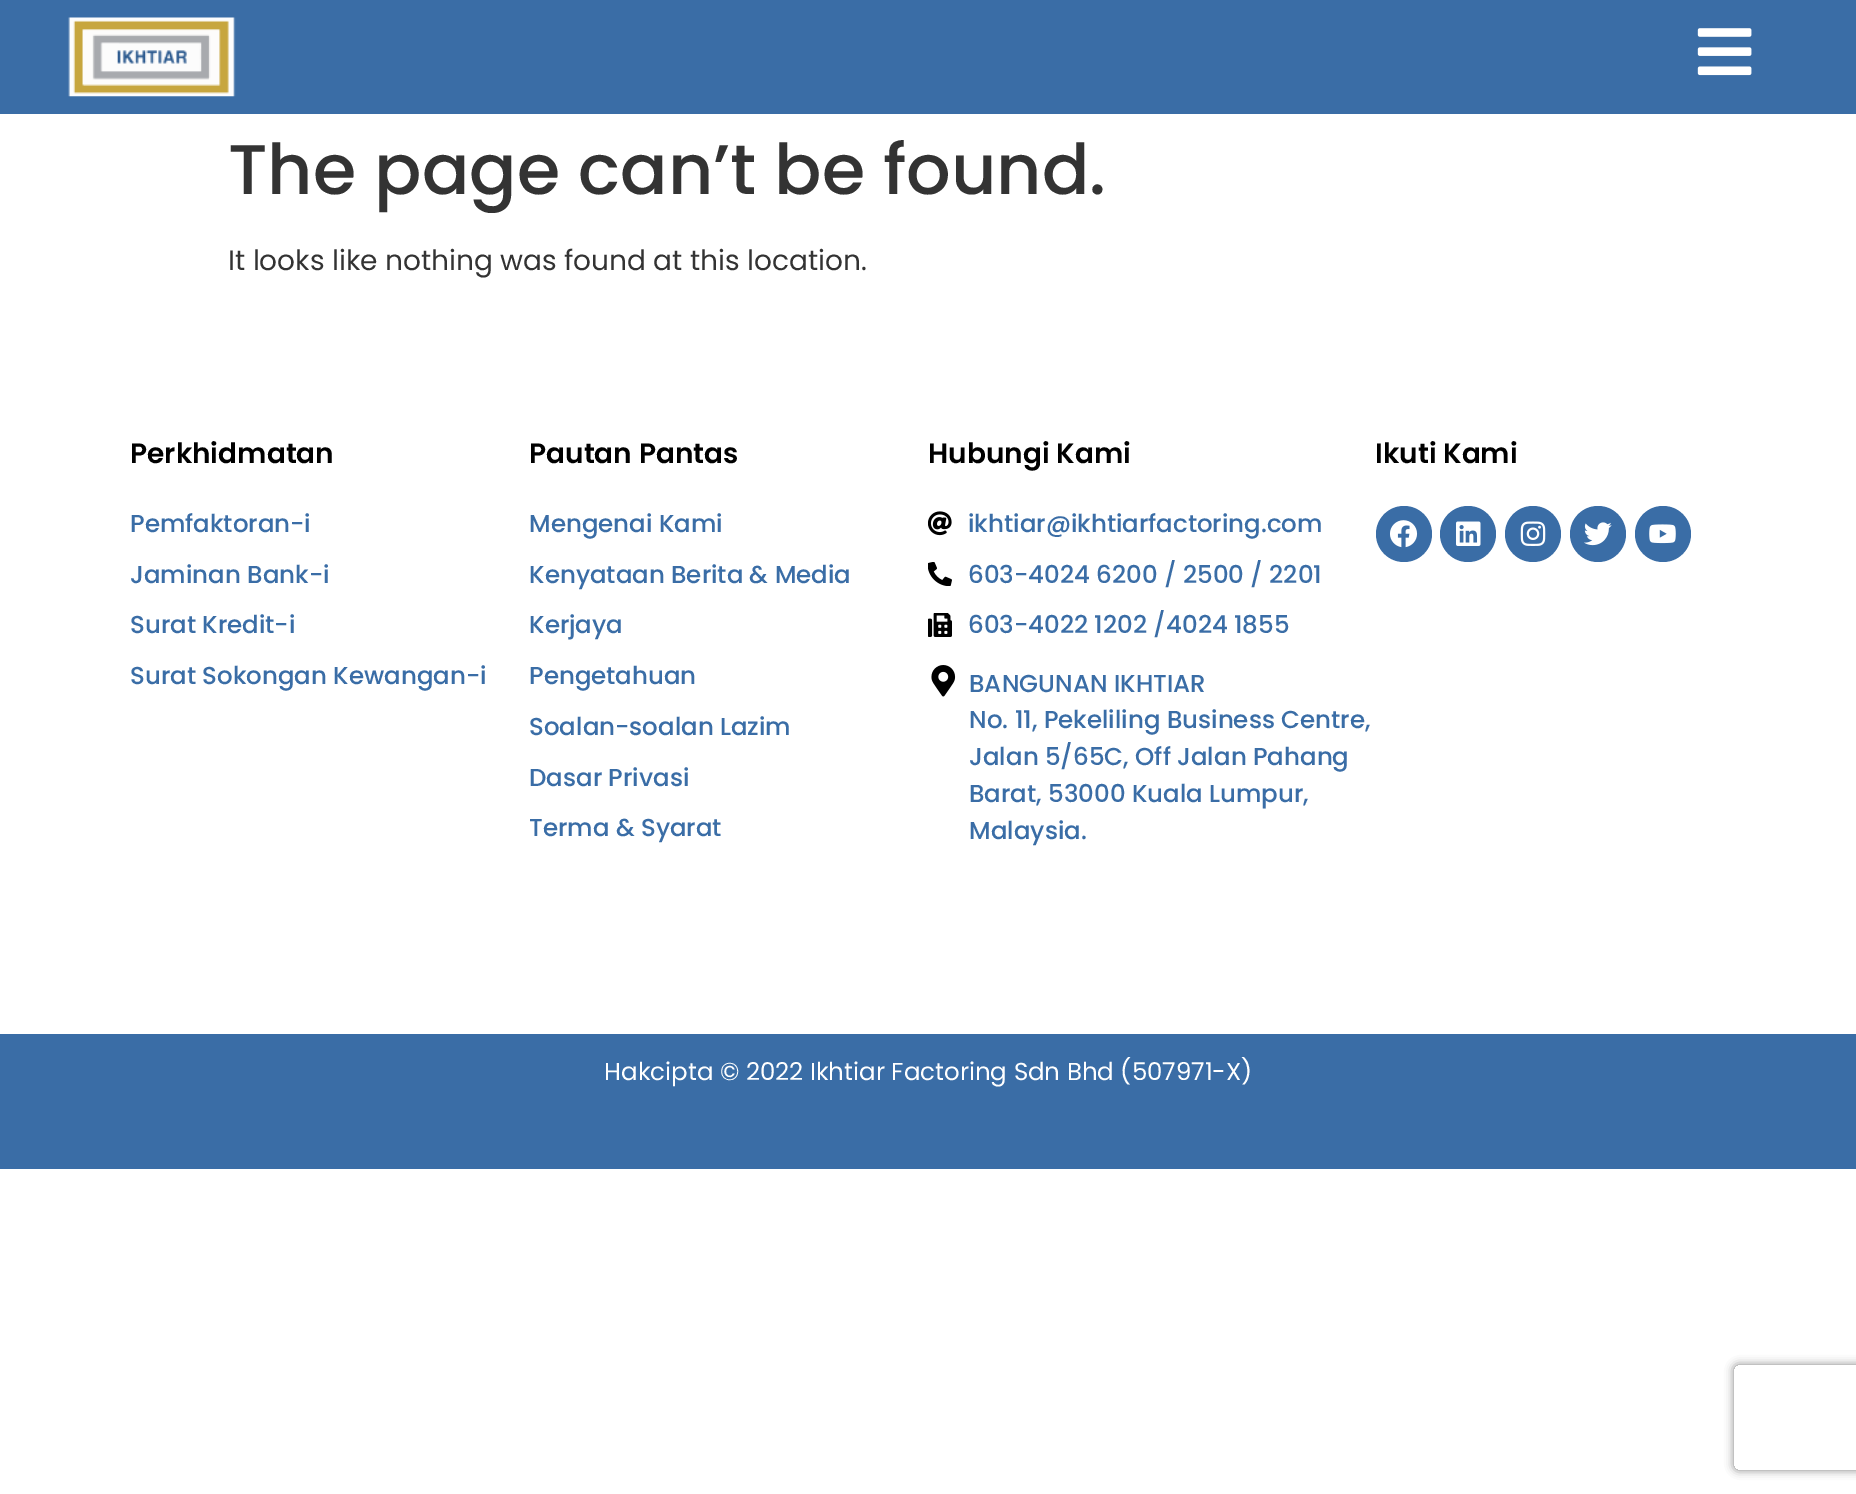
%!PS-Adobe-3.0
%%BoundingBox: 0 0 1856 1494
%%LanguageLevel: 3
%%Pages: 1
%%EndComments
%%BeginProlog
/setink { dup -16 bitshift 255 div exch dup -8 bitshift 255 and 255 div exch 255 and 255 div setrgbcolor } def
/usefont { [ exch dup neg 0 0 3 -1 roll 0 0 ] selectfont } def
/setalpha { dup .setfillconstantalpha .setstrokeconstantalpha } def
/disc { newpath 0 360 arc closepath } def
/rrect { 5 dict begin { /r /h /w /y /x } { exch def } forall
  x r add y moveto x w add y 2 copy h add r arct x w add y h add x 1 index r arct
  x y h add x y r arct x y 2 copy exch w add exch r arct closepath end } def
/softshadow { 12 dict begin { /a /b /q /h /w /y /x } { exch def } forall gsave /was 0 def
  9 -2 -9 { dup b mul 4 div /e exch def 1 sub .425 mul 2.718 exch exp 1 add a .99 .min exch div /now exch def
    1 1 now sub 1 was sub div sub setalpha /was now def
    w h .min e 2 mul add 0 gt { x e sub y e sub w e 2 mul add h e 2 mul add
      q e add b .6 mul add w h .min 2 div e add .min 0 .max rrect fill } if } for grestore end } def
/drawimage { 5 dict begin { /h /w /y /x /name } { exch def } forall
  gsave x y translate w h scale
  w h 8 [w 0 0 h 0 0] name (r) file false 3 colorimage grestore end } def
%%EndProlog
%%BeginSetup
<< /PageSize [1856 1494] /PageUsesTransparency true >> setpagedevice
%%EndSetup
%%Page: 1 1
0 .pushpdf14devicefilter
0 1494 translate 1 -1 scale
4 setmiterlimit
16#FFFFFF setink
0 0 1856 1494 rectfill
16#3A6DA6 setink
0 0 1856 114 rectfill
(img1.raw) 68 17 168 80 drawimage
(img2.raw) 1697 28 55 48 drawimage
/Poppins-Medium 70 usefont
16#333333 setink
228 194 moveto (The page can’t be found.) show
/Poppins-Regular 28 usefont
228 270 moveto (It looks like nothing was found at this location.) show
/Poppins-SemiBold 28 usefont
16#000000 setink
130 463 moveto (Perkhidmatan) show
/Poppins-Medium 24.5 usefont
16#3A6DA6 setink
[
    [(Pemfaktoran-i) 130 532]
    [(Jaminan Bank-i) 130 583]
    [(Surat Kredit-i) 130 633]
    [(Surat Sokongan Kewangan-i) 130 684]
] { aload pop moveto show } forall
/Poppins-SemiBold 28 usefont
16#000000 setink
529 463 moveto (Pautan Pantas) show
/Poppins-Medium 24.5 usefont
16#3A6DA6 setink
[
    [(Mengenai Kami) 529 532]
    [(Kenyataan Berita & Media) 529 583]
    [(Kerjaya) 529 633]
    [(Pengetahuan) 529 684]
    [(Soalan-soalan Lazim) 529 735]
    [(Dasar Privasi) 529 786]
    [(Terma & Syarat) 529 836]
] { aload pop moveto show } forall
/Poppins-SemiBold 28 usefont
16#000000 setink
928 463 moveto (Hubungi Kami) show
(img3.raw) 928 511 24 25 drawimage
/Poppins-Medium 24.5 usefont
16#3A6DA6 setink
968 532 moveto (ikhtiar@ikhtiarfactoring.com) show
(img4.raw) 928 562 24 24 drawimage
968 583 moveto (603-4024 6200 / 2500 / 2201) show
(img5.raw) 928 613 24 24 drawimage
968 633 moveto (603-4022 1202 /4024 1855) show
(img6.raw) 931 665 25 32 drawimage
[
    [(BANGUNAN IKHTIAR) 969 692]
    [(No. 11, Pekeliling Business Centre,) 969 728]
    [(Jalan 5/65C, Off Jalan Pahang) 969 765]
    [(Barat, 53000 Kuala Lumpur,) 969 802]
    [(Malaysia.) 969 839]
] { aload pop moveto show } forall
/Poppins-SemiBold 28 usefont
16#000000 setink
1375 463 moveto (Ikuti Kami) show
16#3A6DA6 setink
1404 534 28 disc fill
(img7.raw) 1390 520 28 28 drawimage
1468 534 28 disc fill
(img8.raw) 1456 521 25 25 drawimage
1533 534 28 disc fill
(img9.raw) 1520 521 26 25 drawimage
1598 534 28 disc fill
(img10.raw) 1584 522 28 24 drawimage
1663 534 28 disc fill
(img11.raw) 1649 524 27 20 drawimage
0 1034 1856 135 rectfill
/Poppins-Regular 24.5 usefont
16#FFFFFF setink
604 1080 moveto (Hakcipta © 2022 Ikhtiar Factoring Sdn Bhd \(507971-X\)) show
gsave
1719 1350 moveto 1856 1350 lineto 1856 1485 lineto 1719 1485 lineto closepath 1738 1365 moveto 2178 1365 lineto 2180 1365 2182 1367 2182 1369 curveto 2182 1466 lineto 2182 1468 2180 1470 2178 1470 curveto 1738 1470 lineto 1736 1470 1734 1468 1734 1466 curveto 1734 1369 lineto 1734 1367 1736 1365 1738 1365 curveto closepath eoclip newpath
16#808080 setink
1734 1365 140 105 4 4.5 1 softshadow
grestore
.poppdf14devicefilter showpage
%%EOF
